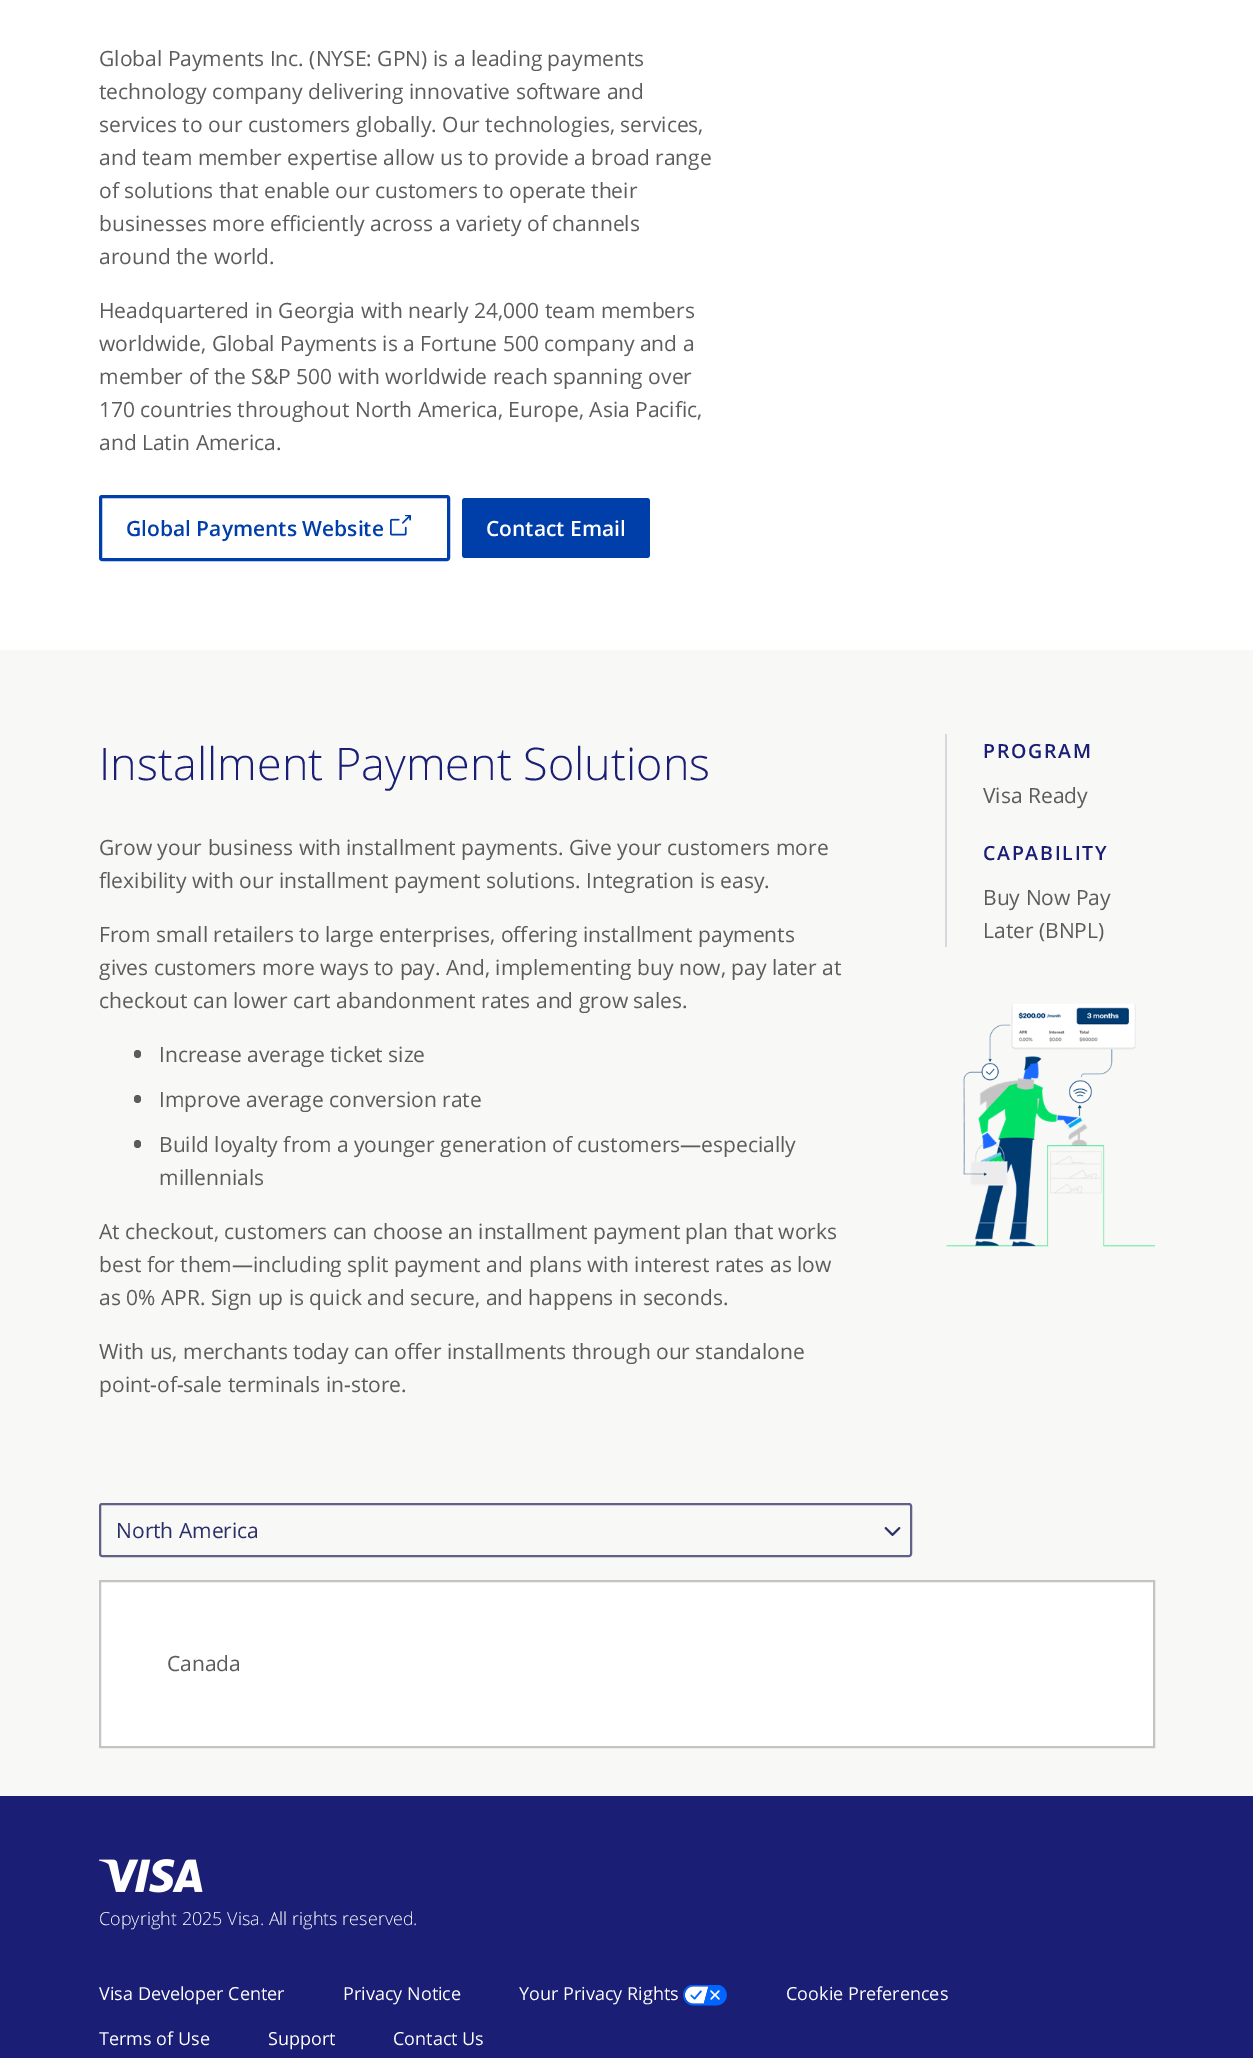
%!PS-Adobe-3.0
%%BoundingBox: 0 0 1253 2058
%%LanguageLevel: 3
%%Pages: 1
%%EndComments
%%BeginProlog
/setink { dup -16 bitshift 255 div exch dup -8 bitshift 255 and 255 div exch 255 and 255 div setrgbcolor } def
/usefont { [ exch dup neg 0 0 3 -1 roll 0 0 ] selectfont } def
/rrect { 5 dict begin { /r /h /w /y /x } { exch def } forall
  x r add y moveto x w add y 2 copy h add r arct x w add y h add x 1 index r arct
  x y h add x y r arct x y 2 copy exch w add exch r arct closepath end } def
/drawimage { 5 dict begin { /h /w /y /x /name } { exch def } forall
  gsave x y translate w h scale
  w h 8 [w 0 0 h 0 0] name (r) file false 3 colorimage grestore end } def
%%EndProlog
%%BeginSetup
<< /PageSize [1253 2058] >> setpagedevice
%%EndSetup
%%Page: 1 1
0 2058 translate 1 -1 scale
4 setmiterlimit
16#F8F8F7 setink
0 0 1253 2058 rectfill
16#FFFFFF setink
0 0 1253 650 rectfill
/OpenSans-Regular 21 usefont
16#5C5C5C setink
[
    [(Global Payments Inc. \(NYSE: GPN\) is a leading payments) 99 66]
    [(technology company delivering innovative software and) 99 99]
    [(services to our customers globally. Our technologies, services,) 99 132]
    [(and team member expertise allow us to provide a broad range) 99 165]
    [(of solutions that enable our customers to operate their) 99 198]
    [(businesses more efficiently across a variety of channels) 99 231]
    [(around the world.) 99 264]
    [(Headquartered in Georgia with nearly 24,000 team members) 99 318]
    [(worldwide, Global Payments is a Fortune 500 company and a) 99 351]
    [(member of the S&P 500 with worldwide reach spanning over) 99 384]
    [(170 countries throughout North America, Europe, Asia Pacific,) 99 417]
    [(and Latin America.) 99 450]
] { aload pop moveto show } forall
16#003EA9 setink
3 setlinewidth
100.5 496.5 348 63 1.5 rrect stroke
/OpenSans-SemiBold 21 usefont
126 536 moveto (Global Payments Website) show
(img1.raw) 390 515 21 21 drawimage
462 498 188 60 3 rrect fill
16#FFFFFF setink
486 536 moveto (Contact Email) show
/OpenSans-Light 45 usefont
16#1A1E75 setink
99 780 moveto (Installment Payment Solutions) show
/OpenSans-Regular 21 usefont
16#5C5C5C setink
[
    [(Grow your business with installment payments. Give your customers more) 99 855]
    [(flexibility with our installment payment solutions. Integration is easy.) 99 888]
    [(From small retailers to large enterprises, offering installment payments) 99 942]
    [(gives customers more ways to pay. And, implementing buy now, pay later at) 99 975]
    [(checkout can lower cart abandonment rates and grow sales.) 99 1008]
] { aload pop moveto show } forall
134 1050 7 8 3.5 rrect fill
159 1062 moveto (Increase average ticket size) show
134 1095 7 8 3.5 rrect fill
159 1107 moveto (Improve average conversion rate) show
134 1140 7 8 3.5 rrect fill
[
    [(Build loyalty from a younger generation of customers—especially) 159 1152]
    [(millennials) 159 1185]
    [(At checkout, customers can choose an installment payment plan that works) 99 1239]
    [(best for them—including split payment and plans with interest rates as low) 99 1272]
    [(as 0% APR. Sign up is quick and secure, and happens in seconds.) 99 1305]
    [(With us, merchants today can offer installments through our standalone) 99 1359]
    [(point-of-sale terminals in-store.) 99 1392]
] { aload pop moveto show } forall
16#D7D7DE setink
945 734 2 213 rectfill
/OpenSans-SemiBold 19.5 usefont
16#1A1E75 setink
983 758 moveto 1.75 0 (PROGRAM) ashow
/OpenSans-Regular 21 usefont
16#5C5C5C setink
983 803 moveto (Visa Ready) show
/OpenSans-SemiBold 19.5 usefont
16#1A1E75 setink
983 860 moveto 1.75 0 (CAPABILITY) ashow
/OpenSans-Regular 21 usefont
16#5C5C5C setink
983 905 moveto (Buy Now Pay) show
983 938 moveto (Later \(BNPL\)) show
(img2.raw) 946 1003 209 244 drawimage
16#616188 setink
2 setlinewidth
100 1504 811 52 2 rrect stroke
16#2A2E69 setink
116 1538 moveto (North America) show
(img3.raw) 884 1527 17 9 drawimage
16#FFFFFF setink
100 1581 moveto 1154 1581 lineto 1154 1747 lineto 100 1747 lineto closepath gsave fill grestore
16#C4C4C4 setink
stroke
16#5C5C5C setink
167 1671 moveto (Canada) show
16#1A1E75 setink
0 1796 1253 262 rectfill
(img4.raw) 99 1859 104 34 drawimage
/OpenSans-Light 18 usefont
16#FFFFFF setink
99 1925 moveto (Copyright 2025 Visa. All rights reserved.) show
/OpenSans-Regular 18 usefont
[
    [(Visa Developer Center) 99 2000]
    [(Privacy Notice) 343 2000]
    [(Your Privacy Rights) 519 2000]
] { aload pop moveto show } forall
(img5.raw) 683 1985 44 21 drawimage
[
    [(Cookie Preferences) 786 2000]
    [(Terms of Use) 99 2045]
    [(Support) 268 2045]
    [(Contact Us) 393 2045]
] { aload pop moveto show } forall
showpage
%%EOF
